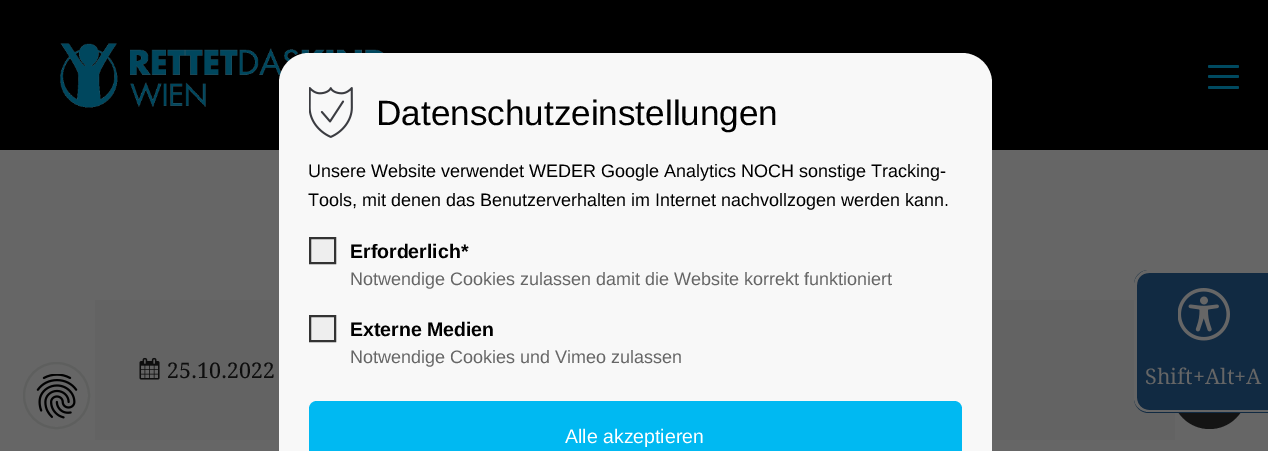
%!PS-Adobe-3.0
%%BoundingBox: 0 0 1268 451
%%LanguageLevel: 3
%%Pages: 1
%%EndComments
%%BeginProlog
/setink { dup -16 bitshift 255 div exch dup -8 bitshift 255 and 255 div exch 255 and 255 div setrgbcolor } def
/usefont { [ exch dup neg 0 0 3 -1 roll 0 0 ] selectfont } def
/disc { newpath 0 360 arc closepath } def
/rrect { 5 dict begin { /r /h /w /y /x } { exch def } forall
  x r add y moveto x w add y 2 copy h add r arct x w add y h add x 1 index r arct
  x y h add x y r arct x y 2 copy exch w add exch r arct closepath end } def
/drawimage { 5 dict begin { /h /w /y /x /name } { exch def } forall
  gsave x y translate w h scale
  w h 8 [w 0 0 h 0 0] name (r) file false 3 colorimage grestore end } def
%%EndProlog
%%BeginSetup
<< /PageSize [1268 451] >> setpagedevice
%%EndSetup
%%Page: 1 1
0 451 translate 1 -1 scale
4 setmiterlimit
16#666666 setink
0 0 1268 451 rectfill
(img1.raw) 36 374 42 45 drawimage
16#5E5F5E setink
2 setlinewidth
56.5 395.5 32.5 disc stroke
16#000000 setink
0 0 1268 150 rectfill
(img4.raw) 60 43 324 65 drawimage
16#636363 setink
95 300 1080 140 rectfill
16#F8F8F8 setink
309 53 moveto 962 53 lineto 978.5 53 992 66.5 992 83 curveto 992 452 lineto 279 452 lineto 279 83 lineto 279 66.5 292.5 53 309 53 curveto closepath fill
(img2.raw) 309 87 44 51 drawimage
/LiberationSans-Regular 35.1 usefont
16#000000 setink
376 125 moveto (Datenschutzeinstellungen) show
/LiberationSans-Regular 18 usefont
308 177 moveto (Unsere Website verwendet WEDER Google Analytics NOCH sonstige Tracking-) show
308 206 moveto (Tools, mit denen das Benutzerverhalten im Internet nachvollzogen werden kann.) show
16#EEEEEE setink
310 238 moveto 335 238 lineto 335 263 lineto 310 263 lineto closepath gsave fill grestore
16#333333 setink
stroke
/LiberationSans-Bold 19.5 usefont
16#000000 setink
350 258 moveto (Erforderlich*) show
/LiberationSans-Regular 18 usefont
16#666666 setink
350 285 moveto (Notwendige Cookies zulassen damit die Website korrekt funktioniert) show
16#EEEEEE setink
310 316 moveto 335 316 lineto 335 341 lineto 310 341 lineto closepath gsave fill grestore
16#333333 setink
stroke
/LiberationSans-Bold 19.5 usefont
16#000000 setink
350 336 moveto (Externe Medien) show
/LiberationSans-Regular 18 usefont
16#666666 setink
350 363 moveto (Notwendige Cookies und Vimeo zulassen) show
16#00B9F2 setink
317 401 moveto 954 401 lineto 958.5 401 962 404.5 962 409 curveto 962 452 lineto 309 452 lineto 309 409 lineto 309 404.5 312.5 401 317 401 curveto closepath fill
/LiberationSans-Regular 19.5 usefont
16#FFFFFF setink
565 443 moveto (Alle akzeptieren) show
16#141414 setink
1209.5 391.5 37.5 disc fill
16#112A42 setink
1149 270 moveto 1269 270 lineto 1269 413 lineto 1149 413 lineto 1140.5 413 1134 406.5 1134 398 curveto 1134 285 lineto 1134 276.5 1140.5 270 1149 270 curveto closepath fill
16#666666 setink
1149 270 moveto 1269 270 lineto 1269 412 lineto 1149 412 lineto 1141 412 1134 406 1134 398 curveto 1134 285 lineto 1134 277 1141 270 1149 270 curveto closepath 1149 273 moveto 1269 273 lineto 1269 410 lineto 1149 410 lineto 1142 410 1137 404 1137 398 curveto 1137 285 lineto 1137 278 1142 273 1149 273 curveto closepath eofill
(img3.raw) 1178 288 52 53 drawimage
/DroidSerif-Regular 21.5 usefont
1145 384 moveto (Shift+Alt+A) show
16#004A61 setink
1208 75 31 3 1.5 rrect fill
1208 65 31 3 1.5 rrect fill
1208 86 31 3 1.5 rrect fill
(img5.raw) 139 357 21 23 drawimage
16#0E0E0E setink
167 378 moveto (25.10.2022) show
showpage
%%EOF
